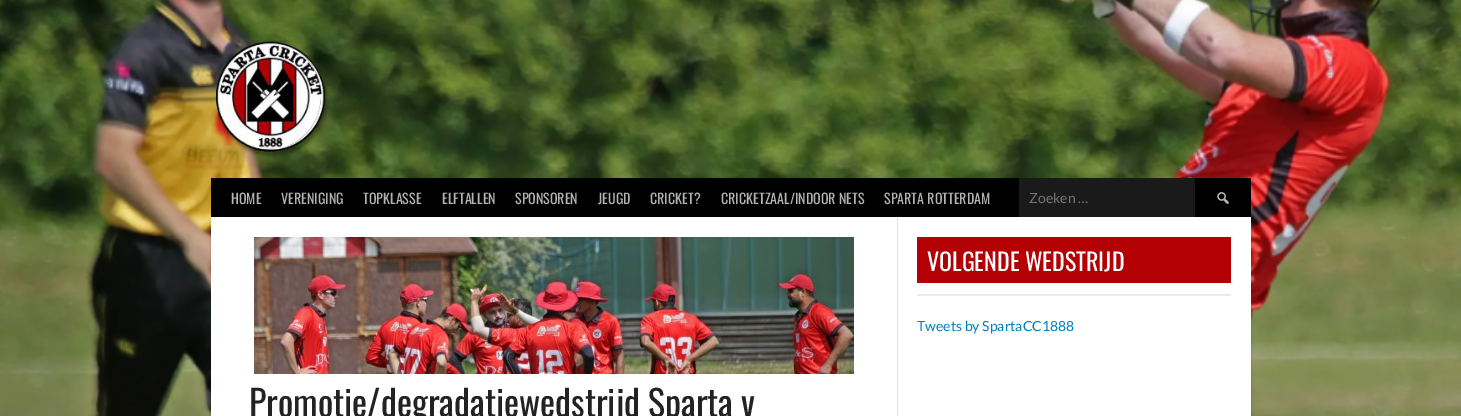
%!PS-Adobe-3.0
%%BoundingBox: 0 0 1461 416
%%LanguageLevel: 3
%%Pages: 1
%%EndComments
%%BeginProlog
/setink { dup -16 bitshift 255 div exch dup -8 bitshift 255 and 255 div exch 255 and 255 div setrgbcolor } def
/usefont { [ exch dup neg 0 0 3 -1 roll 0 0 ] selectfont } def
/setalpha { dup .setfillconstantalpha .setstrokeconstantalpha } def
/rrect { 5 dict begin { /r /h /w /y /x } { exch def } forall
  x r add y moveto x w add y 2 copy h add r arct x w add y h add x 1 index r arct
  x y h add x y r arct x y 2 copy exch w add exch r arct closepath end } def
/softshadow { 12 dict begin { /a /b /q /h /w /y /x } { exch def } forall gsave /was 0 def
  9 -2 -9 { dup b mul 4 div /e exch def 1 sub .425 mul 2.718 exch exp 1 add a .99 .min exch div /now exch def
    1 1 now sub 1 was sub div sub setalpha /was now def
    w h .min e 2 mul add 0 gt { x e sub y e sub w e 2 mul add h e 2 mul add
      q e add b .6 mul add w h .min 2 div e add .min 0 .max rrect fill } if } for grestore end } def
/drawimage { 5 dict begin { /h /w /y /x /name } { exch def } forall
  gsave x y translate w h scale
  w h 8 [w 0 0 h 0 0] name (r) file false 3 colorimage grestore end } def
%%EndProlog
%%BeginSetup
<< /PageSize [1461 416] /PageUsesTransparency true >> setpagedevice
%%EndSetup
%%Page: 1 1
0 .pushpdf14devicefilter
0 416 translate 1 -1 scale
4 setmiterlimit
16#FFFFFF setink
0 0 1461 416 rectfill
(img1.raw) 0 0 1461 416 drawimage
(img2.raw) 215 41 114 117 drawimage
16#000000 setink
211 220 1040 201 0 1.5 0.2 softshadow
211 178 1040 39 rectfill
/Oswald-Regular 14 usefont
16#B3B3B3 setink
[
    [(HOME) 231 204]
    [(VERENIGING) 281 204]
    [(TOPKLASSE) 363 204]
    [(ELFTALLEN) 442 204]
    [(SPONSOREN) 515 204]
    [(JEUGD) 598 204]
    [(CRICKET?) 650 204]
    [(CRICKETZAAL/INDOOR NETS) 721 204]
    [(SPARTA ROTTERDAM) 884 204]
] { aload pop moveto show } forall
16#1A1A1A setink
1019 178 176 39 rectfill
/Lato-Regular 14 usefont
16#757575 setink
1029 203 moveto (Zoeken …) show
(img3.raw) 1217 192 12 12 drawimage
16#FFFFFF setink
211 217 1040 199 rectfill
16#B20005 setink
917 237 314 46 rectfill
/Oswald-Regular 24 usefont
16#FFFFFF setink
927 271 moveto (VOLGENDE WEDSTRIJD) show
16#EBEBEB setink
917 294 314 2 rectfill
/Lato-Regular 14 usefont
16#057FBC setink
917 331 moveto (Tweets by SpartaCC1888) show
16#E0E0E0 setink
897 217 1 199 rectfill
(img4.raw) 254 237 600 137 drawimage
/Oswald-Regular 36 usefont
16#222222 setink
249 417 moveto (Promotie/degradatiewedstrijd Sparta v) show
.poppdf14devicefilter showpage
%%EOF
